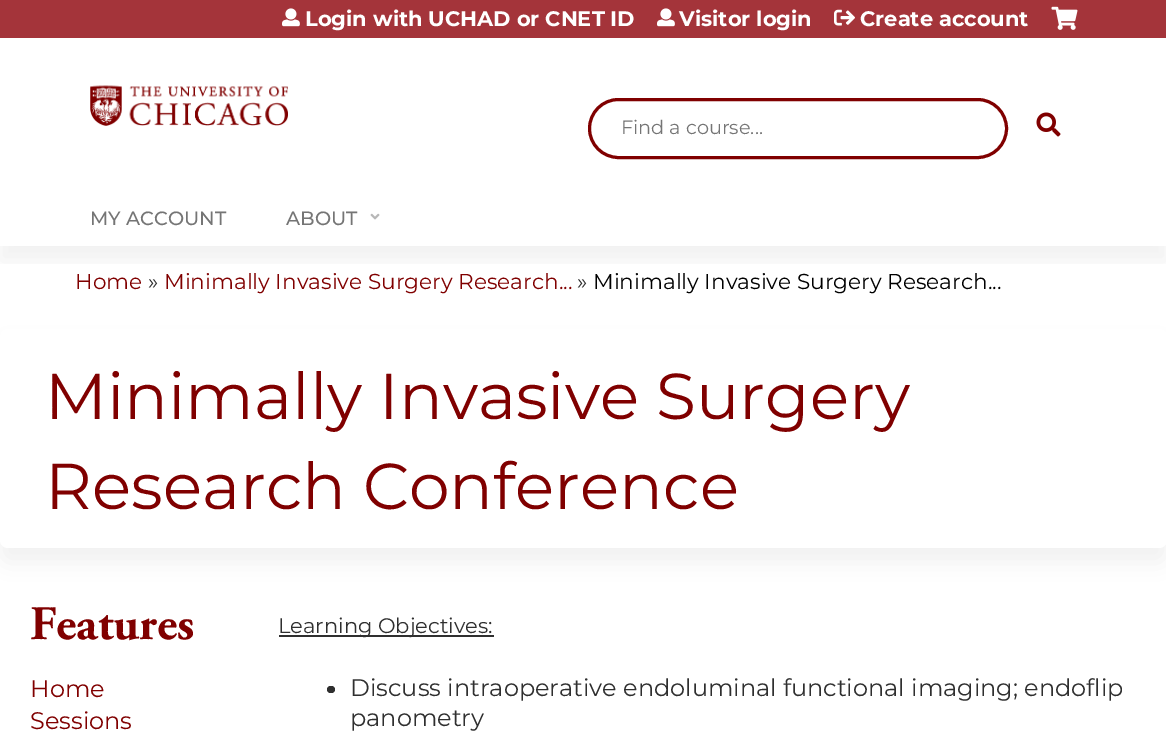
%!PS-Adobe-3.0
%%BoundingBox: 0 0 1166 752
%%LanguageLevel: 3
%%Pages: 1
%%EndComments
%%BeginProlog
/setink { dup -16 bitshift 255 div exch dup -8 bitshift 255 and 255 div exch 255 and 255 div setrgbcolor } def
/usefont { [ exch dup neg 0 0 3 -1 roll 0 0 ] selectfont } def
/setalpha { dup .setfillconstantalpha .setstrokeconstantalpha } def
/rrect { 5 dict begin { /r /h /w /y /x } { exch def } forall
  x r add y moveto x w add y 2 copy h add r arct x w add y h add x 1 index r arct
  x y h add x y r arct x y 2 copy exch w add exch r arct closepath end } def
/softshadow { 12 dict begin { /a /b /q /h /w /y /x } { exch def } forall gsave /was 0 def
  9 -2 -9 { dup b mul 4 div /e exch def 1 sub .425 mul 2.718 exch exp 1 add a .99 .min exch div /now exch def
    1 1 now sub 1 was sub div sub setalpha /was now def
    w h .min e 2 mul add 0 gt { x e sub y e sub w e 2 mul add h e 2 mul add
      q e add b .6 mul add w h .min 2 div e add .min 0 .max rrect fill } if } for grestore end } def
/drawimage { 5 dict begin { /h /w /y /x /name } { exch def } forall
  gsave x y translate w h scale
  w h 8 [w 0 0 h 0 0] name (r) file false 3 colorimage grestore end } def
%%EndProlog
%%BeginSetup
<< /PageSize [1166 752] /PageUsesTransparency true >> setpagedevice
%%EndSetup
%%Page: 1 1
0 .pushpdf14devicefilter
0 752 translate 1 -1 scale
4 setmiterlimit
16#FFFFFF setink
0 0 1166 752 rectfill
16#A4343A setink
0 0 1166 38 rectfill
(img1.raw) 90 85 198 41 drawimage
(img2.raw) 282 8 18 19 drawimage
/Montserrat-Bold 21 usefont
16#FFFFFF setink
305 26 moveto (Login with UCHAD or CNET ID) show
(img2.raw) 657 8 18 19 drawimage
679 26 moveto (Visitor login) show
(img3.raw) 834 9 21 17 drawimage
860 26 moveto (Create account) show
(img4.raw) 1051 6 27 24 drawimage
16#800000 setink
3 setlinewidth
589.5 99.5 417 58 29 rrect stroke
/Montserrat-Regular 19.25 usefont
16#757575 setink
621 134 moveto (Find a course...) show
(img5.raw) 1036 112 25 25 drawimage
gsave
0 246 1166 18 rectclip
16#000000 setink
0 204 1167 57 0 11 0.05 softshadow
grestore
/Montserrat-Medium 19.25 usefont
90 225 moveto (MY ACCOUNT) show
286 225 moveto (ABOUT) show
(img6.raw) 370 213 10 7 drawimage
/Montserrat-Regular 21.6 usefont
16#800000 setink
75 289 moveto (Home) show
16#2F2F2F setink
148 289 moveto (») show
16#800000 setink
164 289 moveto (Minimally Invasive Surgery Research...) show
16#2F2F2F setink
577 289 moveto (») show
16#000000 setink
593 289 moveto (Minimally Invasive Surgery Research...) show
0 344 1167 219 8 11 0.05 softshadow
16#FFFFFF setink
0 329 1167 219 8 rrect fill
/Montserrat-Regular 64.75 usefont
16#800000 setink
45 419 moveto (Minimally Invasive Surgery) show
45 509 moveto (Research Conference) show
/AdobeGaramond-Bold 48 usefont
30 639 moveto (Features) show
/Montserrat-Regular 24 usefont
30 697 moveto (Home) show
30 729 moveto (Sessions) show
16#2F2F2F setink
279 635 215 2 rectfill
/Montserrat-Regular 21 usefont
278 633 moveto (Learning Objectives:) show
327 686 8 7 3.5 rrect fill
gsave
279 674 843 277 rectclip
/Montserrat-Regular 24 usefont
350 696 moveto (Discuss intraoperative endoluminal functional imaging; endoflip) show
grestore
/Montserrat-Regular 24 usefont
350 726 moveto (panometry) show
.poppdf14devicefilter showpage
%%EOF
